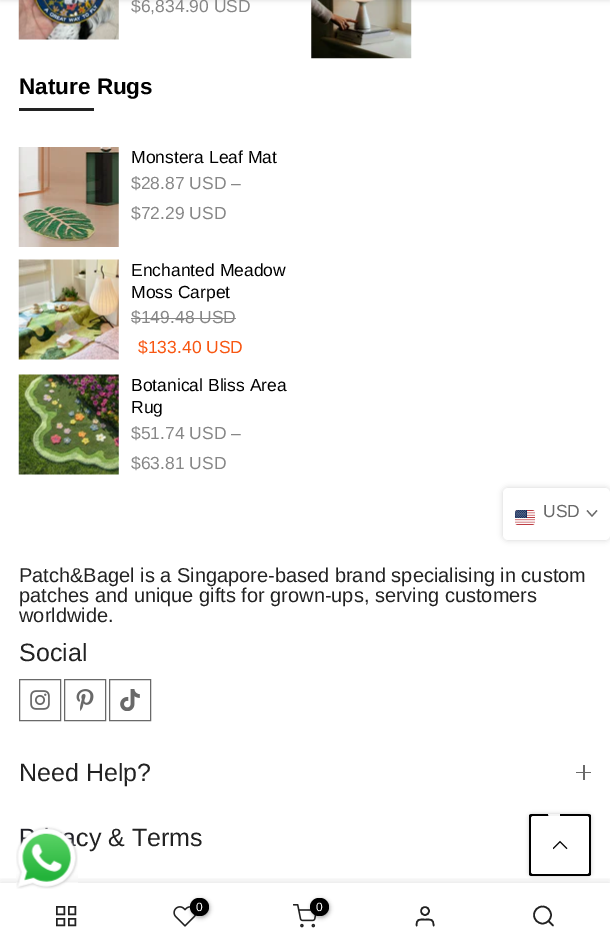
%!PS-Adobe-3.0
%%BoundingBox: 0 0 610 951
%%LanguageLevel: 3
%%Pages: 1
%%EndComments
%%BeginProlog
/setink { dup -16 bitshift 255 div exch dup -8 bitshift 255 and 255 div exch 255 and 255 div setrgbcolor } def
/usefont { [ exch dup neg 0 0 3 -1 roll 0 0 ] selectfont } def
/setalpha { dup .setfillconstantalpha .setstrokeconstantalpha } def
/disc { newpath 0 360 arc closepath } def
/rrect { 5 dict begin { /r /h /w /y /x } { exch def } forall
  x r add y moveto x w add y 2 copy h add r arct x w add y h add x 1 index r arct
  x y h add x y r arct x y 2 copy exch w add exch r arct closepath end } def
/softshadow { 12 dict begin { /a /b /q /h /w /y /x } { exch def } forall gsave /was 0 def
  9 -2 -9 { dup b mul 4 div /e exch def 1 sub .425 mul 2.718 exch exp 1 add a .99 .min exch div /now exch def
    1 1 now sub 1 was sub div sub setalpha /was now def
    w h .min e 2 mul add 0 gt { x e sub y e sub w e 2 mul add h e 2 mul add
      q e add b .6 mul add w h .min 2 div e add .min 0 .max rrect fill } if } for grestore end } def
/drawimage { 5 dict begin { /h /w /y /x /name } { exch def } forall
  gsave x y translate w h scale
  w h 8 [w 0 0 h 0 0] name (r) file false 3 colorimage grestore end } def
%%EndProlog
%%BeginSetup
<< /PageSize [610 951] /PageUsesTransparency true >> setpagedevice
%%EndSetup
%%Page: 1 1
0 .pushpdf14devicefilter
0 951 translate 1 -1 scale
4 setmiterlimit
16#FFFFFF setink
0 0 610 951 rectfill
(img1.raw) 18 0 101 40 drawimage
(img2.raw) 311 0 101 59 drawimage
16#000000 setink
0 -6 610 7 0 2 0.1 softshadow
/LiberationSans-Regular 17.5 usefont
16#878787 setink
131 12 moveto ($6,834.90 USD) show
/LiberationSans-Bold 22.5 usefont
16#000000 setink
19 94 moveto (Nature Rugs) show
16#222222 setink
19 108 75 3 rectfill
(img3.raw) 18 147 101 100 drawimage
/LiberationSans-Regular 17.5 usefont
16#000000 setink
131 163 moveto (Monstera Leaf Mat) show
16#878787 setink
131 189 moveto ($28.87 USD –) show
131 219 moveto ($72.29 USD) show
(img4.raw) 18 259 101 101 drawimage
16#000000 setink
131 276 moveto (Enchanted Meadow) show
131 298 moveto (Moss Carpet) show
16#878787 setink
131 323 moveto ($149.48 USD) show
131 318 105 1 rectfill
16#F85712 setink
138 353 moveto ($133.40 USD) show
(img5.raw) 18 374 101 101 drawimage
16#000000 setink
131 391 moveto (Botanical Bliss Area) show
131 413 moveto (Rug) show
16#878787 setink
131 439 moveto ($51.74 USD –) show
131 469 moveto ($63.81 USD) show
/LiberationSans-Regular 20 usefont
16#222222 setink
[
    [(Patch&Bagel is a Singapore-based brand specialising in custom) 19 582]
    [(patches and unique gifts for grown-ups, serving customers) 19 602]
    [(worldwide.) 19 622]
] { aload pop moveto show } forall
/LiberationSans-Regular 25 usefont
19 661 moveto (Social) show
16#696969 setink
19.5 679.5 41 41 rectstroke
(img6.raw) 30 690 20 20 drawimage
64.5 679.5 41 41 rectstroke
(img7.raw) 76 689 18 22 drawimage
109.5 679.5 41 41 rectstroke
(img8.raw) 120 689 20 22 drawimage
16#222222 setink
19 781 moveto (Need Help?) show
16#696969 setink
583 765 2 15 rectfill
576 772 15 1 rectfill
16#222222 setink
76 846 moveto (cy & Terms) show
16#000000 setink
503 488 107 52 5 3 0.17 softshadow
16#FFFFFF setink
503 488 107 52 5 rrect fill
(img9.raw) 515 510 20 15 drawimage
/LiberationSans-Regular 17.5 usefont
16#696969 setink
543 517 moveto (USD) show
1.2 setlinewidth
2 setlinecap
596.5 511 moveto 592 516 lineto 587.5 511 lineto stroke
gsave
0 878 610 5 rectclip
16#000000 setink
0 883 610 68 0 5.5 0.12 softshadow
grestore
(img10.raw) 16 826 62 63 drawimage
16#000000 setink
529 814 62 62 4 2 0.2 softshadow
560 845 moveto 548 814 lineto 532 814 lineto 530 814 529 815 529 816 curveto 529 874 lineto 529 875 530 876 532 876 curveto 588 876 lineto 590 876 591 875 591 874 curveto 591 816 lineto 591 815 590 814 588 814 curveto 560 814 lineto closepath fill
16#F5F5F5 setink
560 845 moveto 560 814 lineto 548 814 lineto closepath fill
16#FFFFFF setink
531 816 58 58 2.5 rrect fill
(img11.raw) 553 840 15 10 drawimage
16#222222 setink
1.5 setlinewidth
0 setlinecap
56.75 906.75 7.5 7.5 rectstroke
68.75 906.75 6.5 7.5 rectstroke
56.75 918.75 7.5 6.5 rectstroke
68.75 918.75 6.5 6.5 rectstroke
(img12.raw) 173 906 24 21 drawimage
16#000000 setink
191 899 19 19 9.5 2 0.3 softshadow
190 898 19 18 9 rrect fill
/LiberationSans-Regular 12 usefont
16#FFFFFF setink
196 911 moveto (0) show
(img13.raw) 293 904 24 24 drawimage
16#000000 setink
311 899 19 19 9.5 2 0.3 softshadow
310 898 19 18 9 rrect fill
16#FFFFFF setink
316 911 moveto (0) show
16#222222 setink
1.6 setlinewidth
425 911 4 disc stroke
1 setlinecap
1 setlinejoin
433.5 925.5 moveto 433.5 919 431 919.5 425 919.5 curveto 419 919.5 416.5 919 416.5 925.5 curveto stroke
0 setlinecap
0 setlinejoin
542.5 915 8.5 disc stroke
1 setlinecap
1 setlinejoin
553 925.5 moveto 548.5 921 lineto stroke
.poppdf14devicefilter showpage
%%EOF
